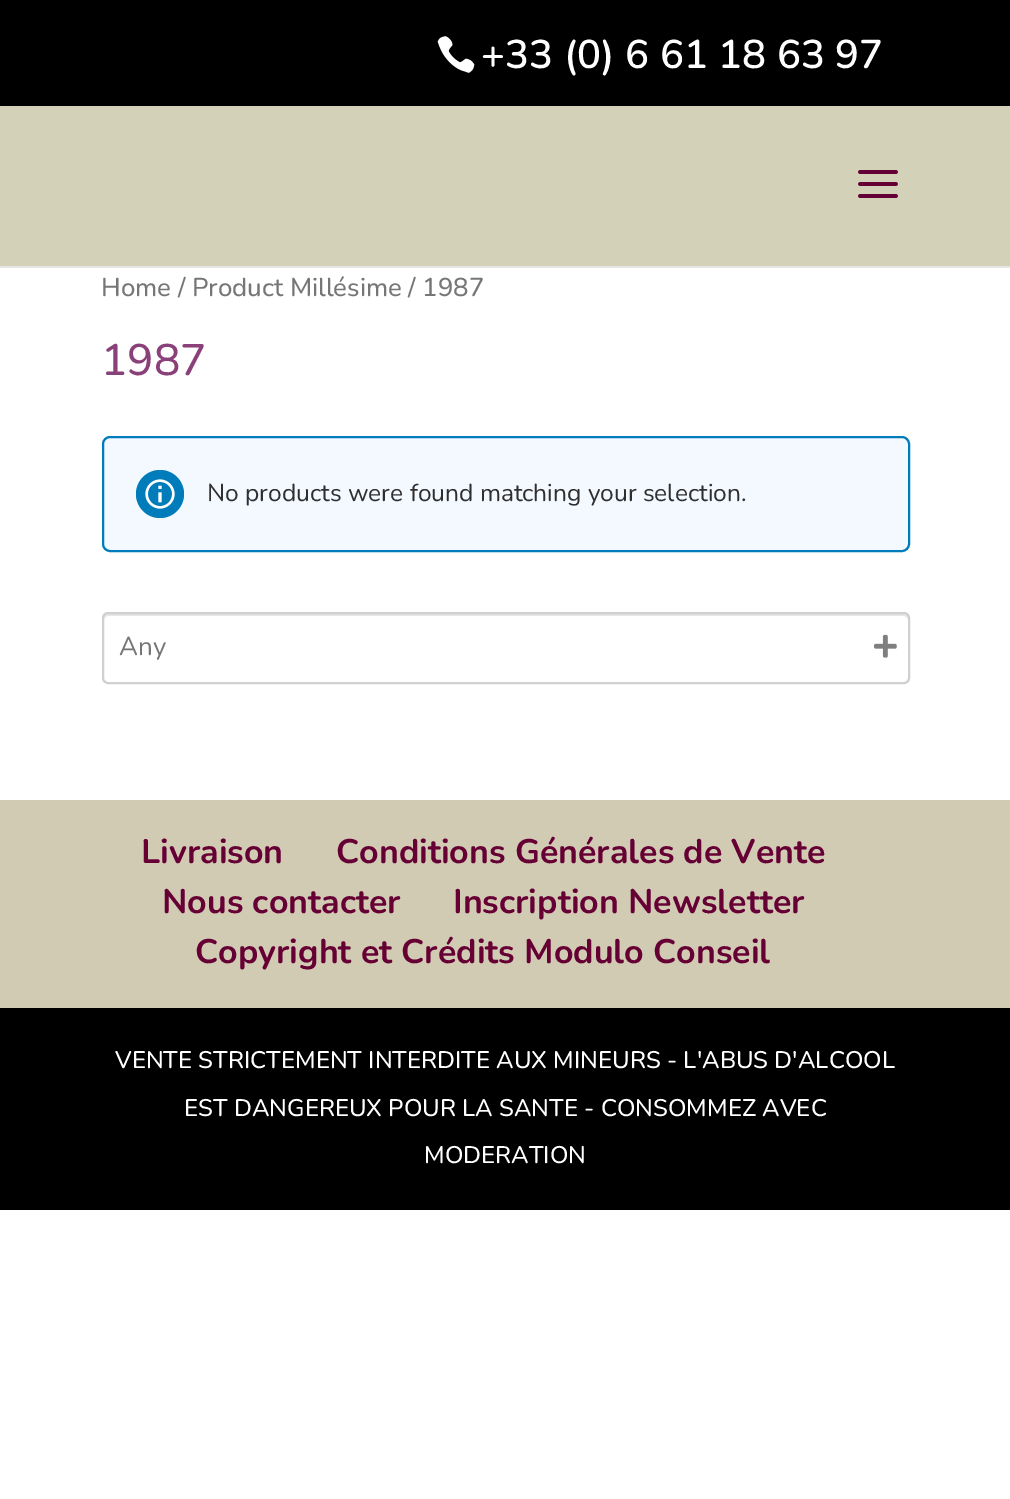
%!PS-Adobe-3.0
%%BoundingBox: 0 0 1010 1499
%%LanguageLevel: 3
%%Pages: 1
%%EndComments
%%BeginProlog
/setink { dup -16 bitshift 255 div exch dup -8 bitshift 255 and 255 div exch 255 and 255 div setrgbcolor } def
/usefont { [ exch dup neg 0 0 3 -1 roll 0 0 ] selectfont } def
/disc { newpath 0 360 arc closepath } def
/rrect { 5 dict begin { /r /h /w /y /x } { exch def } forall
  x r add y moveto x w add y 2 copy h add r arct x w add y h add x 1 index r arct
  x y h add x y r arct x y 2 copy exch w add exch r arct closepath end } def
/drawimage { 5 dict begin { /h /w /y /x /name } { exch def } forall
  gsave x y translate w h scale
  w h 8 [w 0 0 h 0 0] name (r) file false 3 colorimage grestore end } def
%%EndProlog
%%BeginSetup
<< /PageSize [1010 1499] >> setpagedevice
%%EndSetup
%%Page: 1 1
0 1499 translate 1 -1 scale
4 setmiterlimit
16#FFFFFF setink
0 0 1010 1499 rectfill
16#000000 setink
0 0 1010 106 rectfill
(img1.raw) 437 36 38 37 drawimage
/Nunito-ExtraLight 40 usefont
16#FFFFFF setink
481 68 moveto (+33 \(0\) 6 61 18 63 97) show
16#E6E6E6 setink
0 266 1010 2 rectfill
16#D3D1B8 setink
0 106 1010 160 rectfill
(img2.raw) 858 170 40 28 drawimage
/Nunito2-ExtraLight 25.75 usefont
16#767676 setink
101 296 moveto (Home / Product Millésime / 1987) show
/Nunito2-ExtraLight 44 usefont
16#8A4179 setink
101 375 moveto (1987) show
16#F4F8FF setink
103 437 806 114 7 rrect gsave fill grestore
16#007CBA setink
2 setlinewidth
stroke
160 494 24 disc fill
(img3.raw) 145 479 30 30 drawimage
/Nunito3-ExtraLight 24.5 usefont
16#2F2F2F setink
207 501 moveto (No products were found matching your selection.) show
16#E6E6E6 setink
108 616 moveto 904 616 lineto 906 616 908 618 908 620 curveto 908 618 lineto 908 616 906 614 904 614 curveto 108 614 lineto 106 614 104 616 104 618 curveto 104 620 lineto 104 618 106 616 108 616 curveto closepath fill
16#D0D0D0 setink
103 613 806 70 5 rrect stroke
/Nunito3-ExtraLight 26 usefont
16#767676 setink
119 655 moveto (Any) show
(img4.raw) 874 634 23 24 drawimage
16#D1CBB4 setink
0 800 1010 208 rectfill
/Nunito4-ExtraLight 34 usefont
16#660034 setink
[
    [(Livraison) 141 863]
    [(Conditions Générales de Vente) 336 863]
    [(Nous contacter) 162 913]
    [(Inscription Newsletter) 453 913]
    [(Copyright et Crédits Modulo Conseil) 195 963]
] { aload pop moveto show } forall
16#000000 setink
0 1008 1010 202 rectfill
/Nunito2-ExtraLight 24 usefont
16#FFFFFF setink
[
    [(VENTE STRICTEMENT INTERDITE AUX MINEURS - L'ABUS D'ALCOOL) 115 1068]
    [(EST DANGEREUX POUR LA SANTE - CONSOMMEZ AVEC) 184 1116]
    [(MODERATION) 424 1163]
] { aload pop moveto show } forall
showpage
%%EOF
